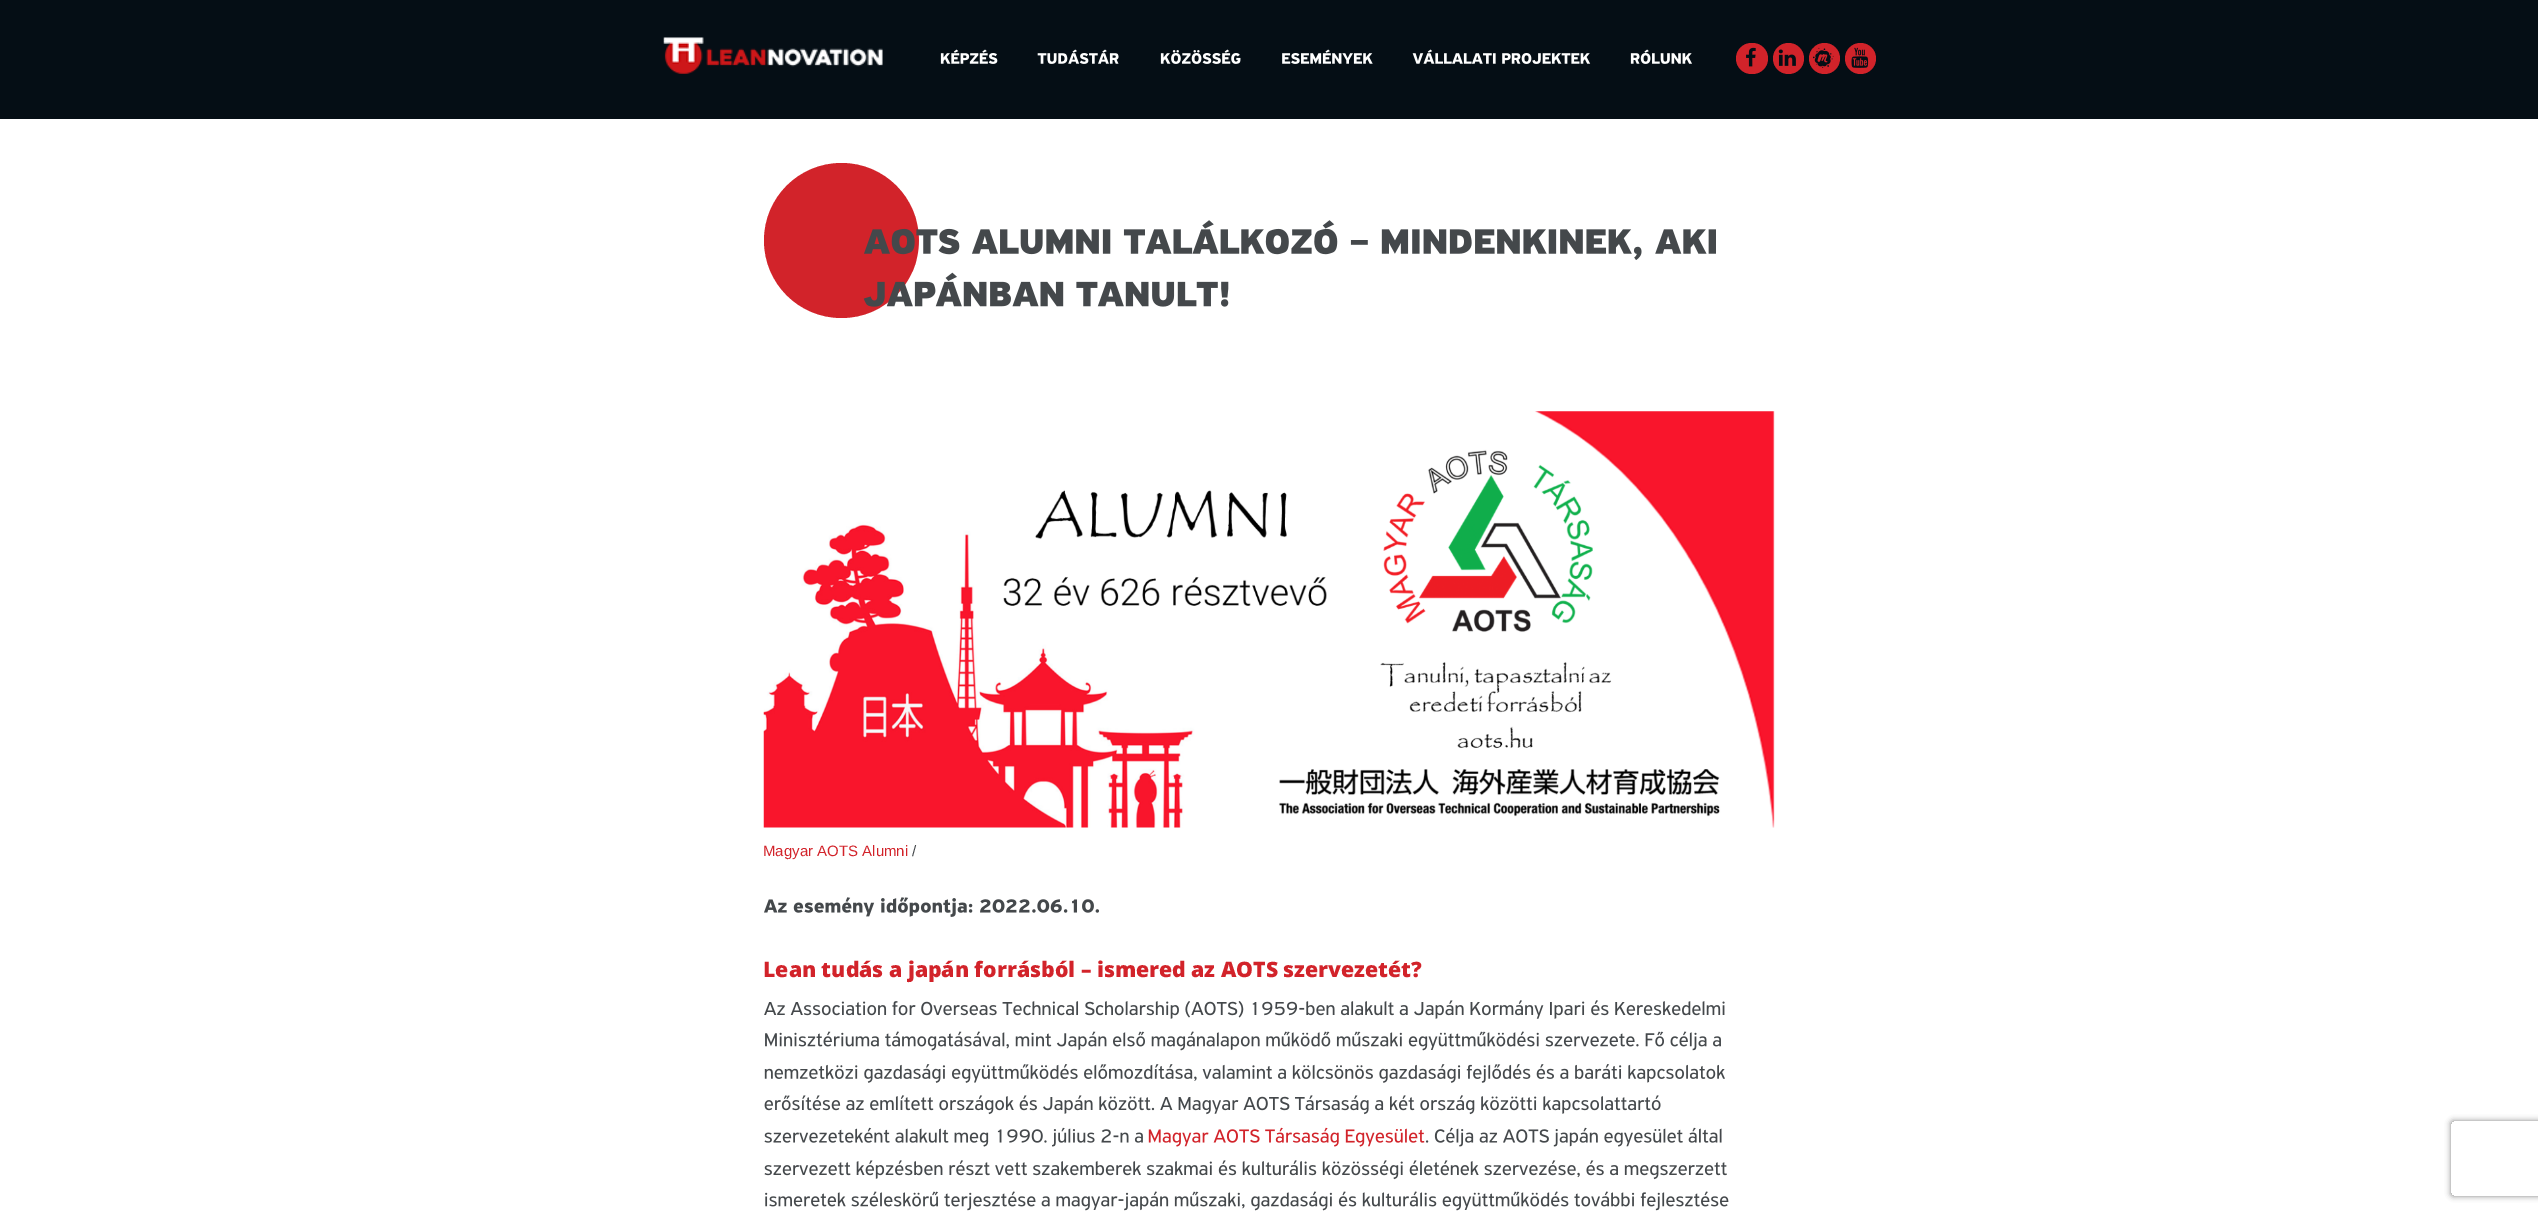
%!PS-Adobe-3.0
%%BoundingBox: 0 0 2538 1213
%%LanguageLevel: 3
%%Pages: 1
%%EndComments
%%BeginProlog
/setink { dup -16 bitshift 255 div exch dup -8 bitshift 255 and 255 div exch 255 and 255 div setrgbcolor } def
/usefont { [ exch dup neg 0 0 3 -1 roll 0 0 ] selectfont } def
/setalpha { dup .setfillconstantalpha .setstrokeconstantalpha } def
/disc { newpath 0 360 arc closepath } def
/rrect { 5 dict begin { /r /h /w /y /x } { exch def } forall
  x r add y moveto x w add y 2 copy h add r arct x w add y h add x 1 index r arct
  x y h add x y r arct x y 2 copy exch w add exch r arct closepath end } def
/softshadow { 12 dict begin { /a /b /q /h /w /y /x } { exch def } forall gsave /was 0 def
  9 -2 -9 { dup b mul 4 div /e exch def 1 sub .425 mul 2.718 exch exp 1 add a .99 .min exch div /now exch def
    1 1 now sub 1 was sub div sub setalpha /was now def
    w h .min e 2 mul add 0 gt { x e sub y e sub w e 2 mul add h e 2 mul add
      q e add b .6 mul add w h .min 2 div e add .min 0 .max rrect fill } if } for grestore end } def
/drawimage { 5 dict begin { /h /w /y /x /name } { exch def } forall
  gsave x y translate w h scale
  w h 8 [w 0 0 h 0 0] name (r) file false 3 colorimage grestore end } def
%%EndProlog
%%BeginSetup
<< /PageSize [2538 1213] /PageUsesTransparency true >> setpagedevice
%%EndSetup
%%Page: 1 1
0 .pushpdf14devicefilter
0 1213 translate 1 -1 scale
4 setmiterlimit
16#FFFFFF setink
0 0 2538 1213 rectfill
16#050E15 setink
0 0 2538 119 rectfill
(img1.raw) 663 37 220 37 drawimage
(img2.raw) 940 49 58 15 drawimage
(img3.raw) 1037 49 82 15 drawimage
(img4.raw) 1160 49 81 15 drawimage
(img5.raw) 1282 49 91 15 drawimage
(img6.raw) 1412 49 179 15 drawimage
(img7.raw) 1630 49 62 15 drawimage
16#D2232A setink
1736 43 32 31 15.5 rrect fill
(img8.raw) 1746 47 10 20 drawimage
1788.5 58.5 15.5 disc fill
(img9.raw) 1778 49 18 17 drawimage
1824.5 58.5 15.5 disc fill
(img10.raw) 1813 47 21 21 drawimage
1860.5 58.5 15.5 disc fill
(img11.raw) 1851 47 18 21 drawimage
841.5 240.5 77.5 disc fill
(img12.raw) 864 220 852 40 drawimage
(img13.raw) 863 272 366 35 drawimage
(img14.raw) 763 411 1012 417 drawimage
/LiberationSans-Regular 15 usefont
763 856 moveto (Magyar AOTS Alumni) show
16#44484B setink
912 856 moveto (/) show
(img15.raw) 764 897 335 20 drawimage
/OpenSans-ExtraBold 21.25 usefont
16#D2232A setink
763 977 moveto (Lean tudás a japán forrásból – ismered az AOTS szervezetét?) show
(img16.raw) 764 1000 961 19 drawimage
(img17.raw) 765 1031 956 20 drawimage
(img18.raw) 764 1064 961 19 drawimage
(img19.raw) 764 1095 897 20 drawimage
(img20.raw) 764 1127 379 20 drawimage
(img21.raw) 1148 1127 277 20 drawimage
(img22.raw) 1425 1127 297 20 drawimage
(img23.raw) 764 1160 963 20 drawimage
(img24.raw) 765 1191 964 20 drawimage
gsave
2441 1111 moveto 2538 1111 lineto 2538 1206 lineto 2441 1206 lineto closepath 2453.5 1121 moveto 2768.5 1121 lineto 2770 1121 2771 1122 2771 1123.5 curveto 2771 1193.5 lineto 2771 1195 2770 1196 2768.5 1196 curveto 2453.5 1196 lineto 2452 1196 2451 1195 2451 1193.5 curveto 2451 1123.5 lineto 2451 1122 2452 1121 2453.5 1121 curveto closepath eoclip newpath
16#808080 setink
2451 1121 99 75 2.5 3 1 softshadow
grestore
.poppdf14devicefilter showpage
%%EOF
